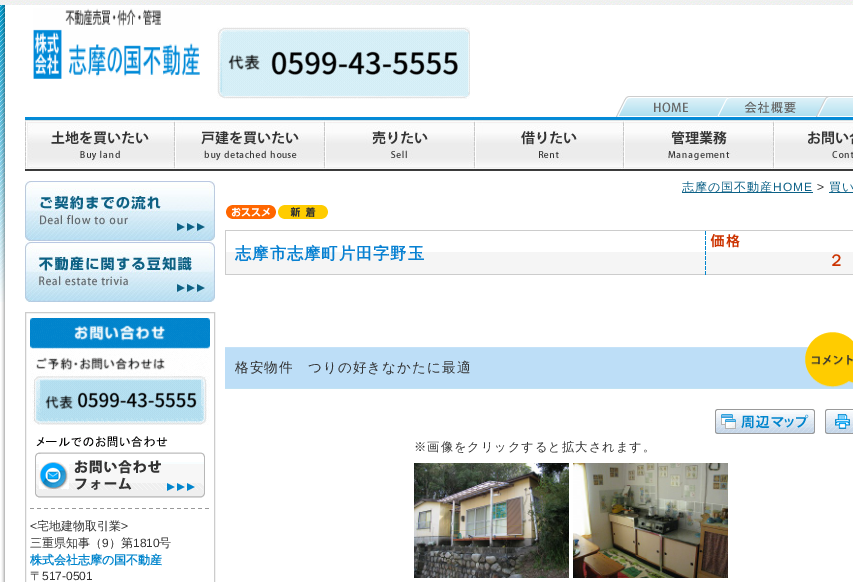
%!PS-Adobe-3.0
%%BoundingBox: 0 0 853 582
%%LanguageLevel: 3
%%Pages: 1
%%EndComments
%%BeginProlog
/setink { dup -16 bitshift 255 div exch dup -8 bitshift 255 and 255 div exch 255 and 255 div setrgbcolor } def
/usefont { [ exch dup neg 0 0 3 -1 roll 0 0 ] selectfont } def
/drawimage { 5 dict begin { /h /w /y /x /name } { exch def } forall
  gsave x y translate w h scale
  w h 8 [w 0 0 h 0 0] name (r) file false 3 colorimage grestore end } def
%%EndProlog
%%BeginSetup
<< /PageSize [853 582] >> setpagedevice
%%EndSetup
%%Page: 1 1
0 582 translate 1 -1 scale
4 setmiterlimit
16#FFFFFF setink
0 0 853 582 rectfill
(img1.raw) 0 0 853 302 drawimage
(img2.raw) 1 5 852 577 drawimage
(img3.raw) 33 8 167 71 drawimage
(img4.raw) 217 27 253 72 drawimage
(img5.raw) 616 96 101 21 drawimage
(img6.raw) 717 96 101 21 drawimage
(img7.raw) 818 96 35 20 drawimage
(img8.raw) 25 117 150 54 drawimage
(img9.raw) 175 117 150 54 drawimage
(img10.raw) 325 117 150 54 drawimage
(img11.raw) 475 117 150 54 drawimage
(img12.raw) 625 117 150 54 drawimage
(img13.raw) 775 117 78 54 drawimage
16#0C6187 setink
682 192 131 1 rectfill
/WenQuanYiZenHei-Medium 12 usefont
682 191 moveto 1 0 (志摩の国不動産) ashow
/LiberationSans-Regular 12 usefont
773 191 moveto 1 0 (HOME) ashow
16#333333 setink
817 191 moveto 1 0 (>) ashow
16#0C6187 setink
829 192 24 1 rectfill
/WenQuanYiZenHei-Medium 12 usefont
829 191 moveto 1 0 (買い) ashow
(img14.raw) 226 205 50 14 drawimage
(img15.raw) 278 205 50 14 drawimage
(img16.raw) 225 230 480 45 drawimage
/WenQuanYiZenHei-Bold 16.25 usefont
16#0881D2 setink
235 259 moveto 1 0 (志摩市志摩町片田字野玉) ashow
(img17.raw) 705 230 148 45 drawimage
16#CC3300 setink
828 266 moveto 1 0 (２) ashow
16#C1E2F3 setink
225 388 628 1 rectfill
(img18.raw) 225 327 628 61 drawimage
/WenQuanYiZenHei-Medium 13.6 usefont
16#333333 setink
235 372 moveto 1 0 (格安物件　つりの好きなかたに最適) ashow
(img19.raw) 715 409 100 25 drawimage
(img20.raw) 825 409 28 25 drawimage
/WenQuanYiZenHei-Medium 12.25 usefont
414 451 moveto 1 0 (※画像をクリックすると拡大されます。) ashow
(img21.raw) 414 463 155 115 drawimage
(img22.raw) 573 463 155 115 drawimage
(img23.raw) 25 181 190 61 drawimage
(img24.raw) 25 242 190 60 drawimage
16#CCCCCC setink
25.5 312.5 189 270 rectstroke
(img25.raw) 30 318 180 107 drawimage
(img26.raw) 35 436 170 62 drawimage
(img27.raw) 30 508 179 1 drawimage
/LiberationSans-Regular 12 usefont
16#333333 setink
30 530 moveto (<) show
/WenQuanYiZenHei-Medium 12 usefont
37 530 moveto (宅地建物取引業) show
/LiberationSans-Regular 12 usefont
121 530 moveto (>) show
/WenQuanYiZenHei-Medium 12 usefont
30 547 moveto (三重県知事（) show
/LiberationSans-Regular 12 usefont
102 547 moveto (9) show
/WenQuanYiZenHei-Medium 12 usefont
109 547 moveto (）第) show
/LiberationSans-Regular 12 usefont
133 547 moveto (1810) show
/WenQuanYiZenHei-Medium 12 usefont
159 547 moveto (号) show
/WenQuanYiZenHei-Bold 12 usefont
16#0185CD setink
30 564 moveto (株式会社志摩の国不動産) show
/WenQuanYiZenHei-Medium 12 usefont
16#333333 setink
30 580 moveto (〒) show
/LiberationSans-Regular 12 usefont
42 580 moveto (517-0501) show
showpage
%%EOF
